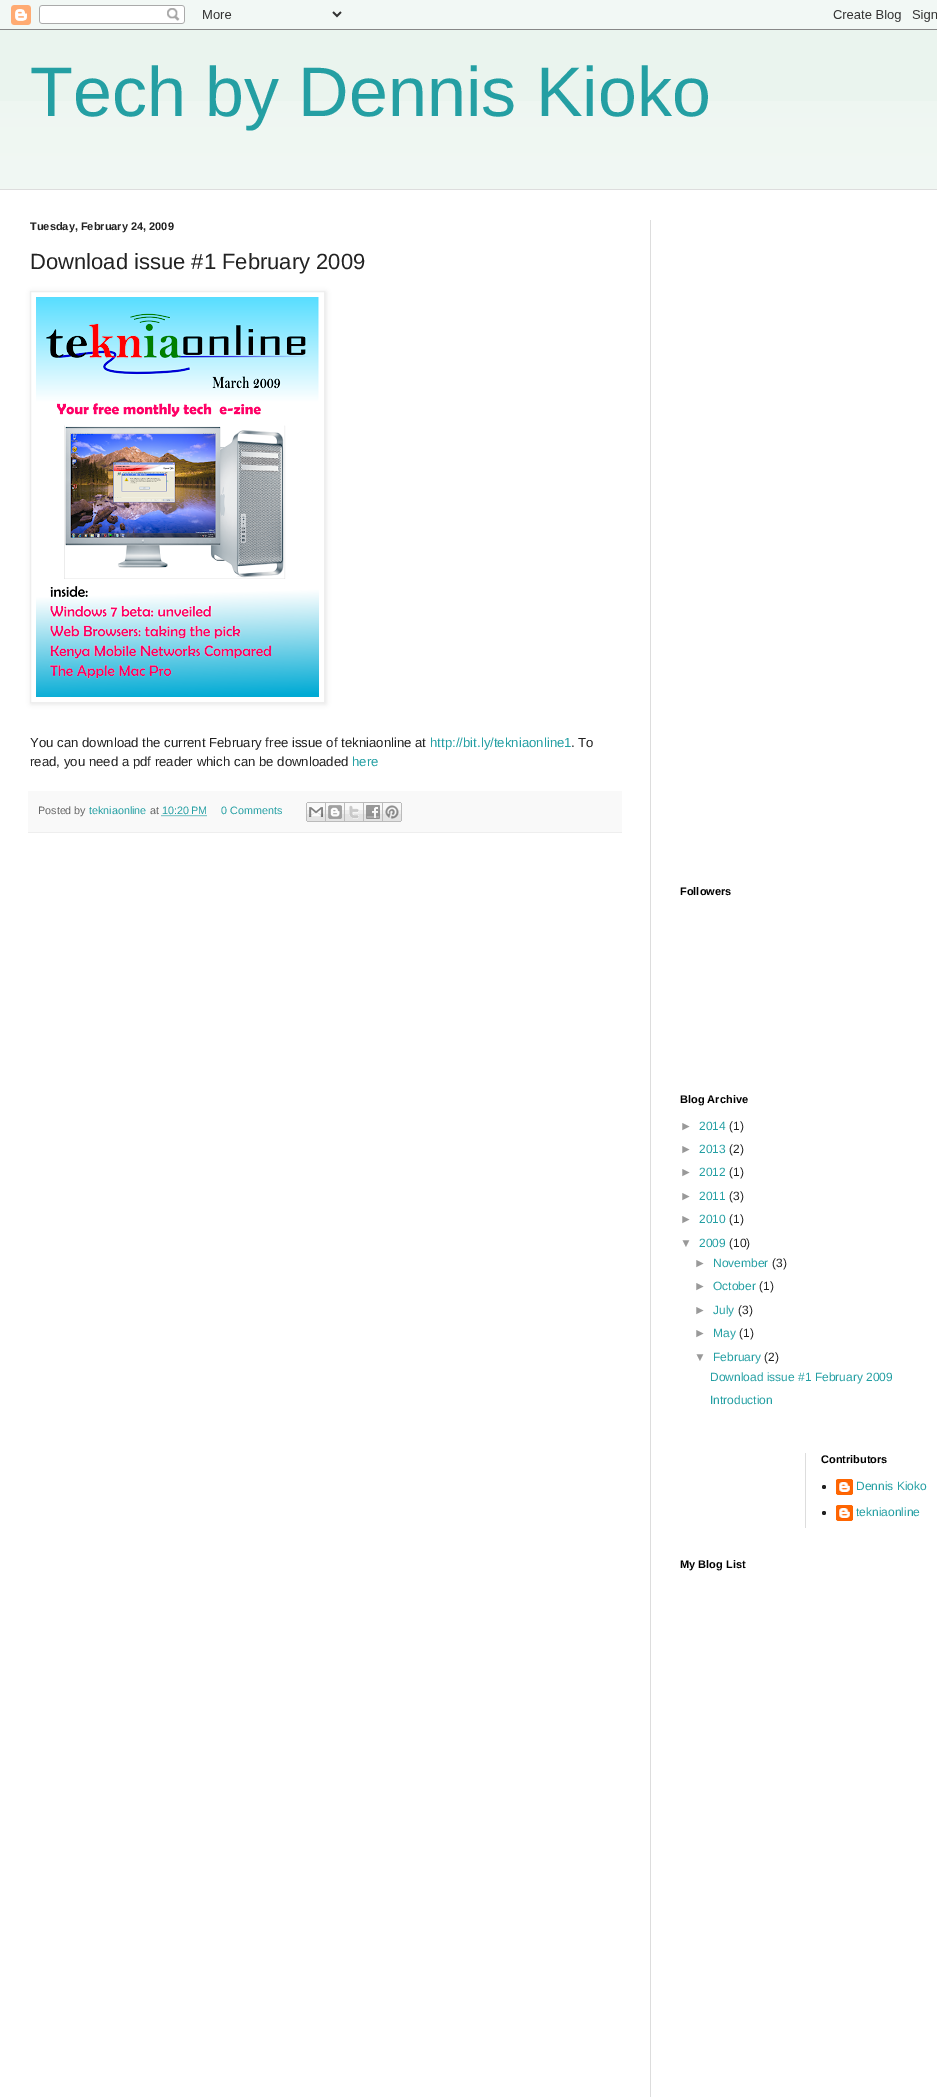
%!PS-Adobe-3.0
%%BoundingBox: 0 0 937 2097
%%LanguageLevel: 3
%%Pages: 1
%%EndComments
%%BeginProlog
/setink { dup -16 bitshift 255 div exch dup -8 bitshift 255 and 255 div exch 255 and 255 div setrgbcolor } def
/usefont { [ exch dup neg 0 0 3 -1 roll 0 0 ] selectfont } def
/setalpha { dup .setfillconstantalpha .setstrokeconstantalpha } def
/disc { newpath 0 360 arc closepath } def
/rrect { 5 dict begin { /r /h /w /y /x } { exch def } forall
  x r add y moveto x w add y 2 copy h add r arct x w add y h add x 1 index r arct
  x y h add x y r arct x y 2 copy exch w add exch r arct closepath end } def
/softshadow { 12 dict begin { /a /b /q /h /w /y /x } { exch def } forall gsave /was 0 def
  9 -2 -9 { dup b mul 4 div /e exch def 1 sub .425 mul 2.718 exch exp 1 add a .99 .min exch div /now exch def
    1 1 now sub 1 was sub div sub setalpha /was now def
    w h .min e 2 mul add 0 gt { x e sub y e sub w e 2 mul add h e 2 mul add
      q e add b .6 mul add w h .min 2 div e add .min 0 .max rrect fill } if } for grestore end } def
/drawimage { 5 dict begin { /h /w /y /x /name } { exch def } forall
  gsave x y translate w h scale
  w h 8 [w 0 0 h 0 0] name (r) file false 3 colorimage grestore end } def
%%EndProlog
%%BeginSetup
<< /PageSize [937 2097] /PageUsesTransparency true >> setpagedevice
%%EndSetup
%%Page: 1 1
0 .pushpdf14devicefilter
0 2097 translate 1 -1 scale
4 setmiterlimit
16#EAF4EE setink
0 0 937 2097 rectfill
(img1.raw) 0 0 937 30 drawimage
(img9.raw) 0 101 937 88 drawimage
/LiberationSans-Regular 70 usefont
16#249FA3 setink
30 116 moveto (Tech by Dennis Kioko) show
[
    [0 190 937 1907 16#FFFFFF]
    [0 189 937 1 16#DDDDDD]
    [650 220 1 1877 16#DDDDDD]
] { aload pop setink rectfill } forall
/LiberationSans-Bold 11 usefont
16#222222 setink
30 230 moveto (Tuesday, February 24, 2009) show
/LiberationSans-Regular 22 usefont
30 269 moveto (Download issue #1 February 2009) show
gsave
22 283 moveto 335 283 lineto 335 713 lineto 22 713 lineto closepath 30 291 moveto 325 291 lineto 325 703 lineto 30 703 lineto closepath eoclip newpath
16#000000 setink
31 292 295 412 0 2.5 0.1 softshadow
grestore
16#EEEEEE setink
30.5 291.5 294 411 rectstroke
(img2.raw) 36 297 283 400 drawimage
/LiberationSans-Regular 13.2 usefont
16#222222 setink
30 747 moveto (You can download the current February free issue of tekniaonline at) show
16#249FA3 setink
430 747 moveto (http://bit.ly/tekniaonline1) show
16#222222 setink
571 747 moveto (. To) show
30 766 moveto (read, you need a pdf reader which can be downloaded) show
16#249FA3 setink
352 766 moveto (here) show
16#F9F9F9 setink
28 791 594 41 rectfill
16#EEEEEE setink
28 832 594 1 rectfill
/LiberationSans-Regular 10.75 usefont
16#666666 setink
38 814 moveto (Posted by) show
16#249FA3 setink
89 814 moveto (tekniaonline) show
16#666666 setink
150 814 moveto (at) show
16#249FA3 setink
162 814 moveto (10:20 PM) show
[1 1] 0 setdash
161.5 815.5 moveto 207 815.5 lineto stroke
221 814 moveto (0 Comments) show
(img3.raw) 306 802 20 20 drawimage
(img4.raw) 326 802 19 20 drawimage
(img5.raw) 345 802 19 20 drawimage
(img6.raw) 364 802 19 20 drawimage
(img7.raw) 383 802 19 20 drawimage
/LiberationSans-Bold 11 usefont
16#000000 setink
680 895 moveto (Followers) show
680 1103 moveto (Blog Archive) show
/LiberationSans-Regular 12 usefont
16#999999 setink
680 1130 moveto (►) show
16#249FA3 setink
699 1130 moveto (2014) show
16#222222 setink
729 1130 moveto (\(1\)) show
16#999999 setink
680 1153 moveto (►) show
16#249FA3 setink
699 1153 moveto (2013) show
16#222222 setink
729 1153 moveto (\(2\)) show
16#999999 setink
680 1176 moveto (►) show
16#249FA3 setink
699 1176 moveto (2012) show
16#222222 setink
729 1176 moveto (\(1\)) show
16#999999 setink
680 1200 moveto (►) show
16#249FA3 setink
699 1200 moveto (2011) show
16#222222 setink
729 1200 moveto (\(3\)) show
16#999999 setink
680 1223 moveto (►) show
16#249FA3 setink
699 1223 moveto (2010) show
16#222222 setink
729 1223 moveto (\(1\)) show
16#999999 setink
680 1247 moveto (▼) show
16#249FA3 setink
699 1247 moveto (2009) show
16#222222 setink
729 1247 moveto (\(10\)) show
16#999999 setink
694 1267 moveto (►) show
16#249FA3 setink
713 1267 moveto (November) show
16#222222 setink
772 1267 moveto (\(3\)) show
16#999999 setink
694 1290 moveto (►) show
16#249FA3 setink
713 1290 moveto (October) show
16#222222 setink
759 1290 moveto (\(1\)) show
16#999999 setink
694 1314 moveto (►) show
16#249FA3 setink
713 1314 moveto (July) show
16#222222 setink
738 1314 moveto (\(3\)) show
16#999999 setink
694 1337 moveto (►) show
16#249FA3 setink
713 1337 moveto (May) show
16#222222 setink
739 1337 moveto (\(1\)) show
16#999999 setink
694 1361 moveto (▼) show
16#249FA3 setink
713 1361 moveto (February) show
16#222222 setink
764 1361 moveto (\(2\)) show
16#249FA3 setink
710 1381 moveto (Download issue #1 February 2009) show
710 1404 moveto (Introduction) show
16#DDDDDD setink
805 1453 1 75 rectfill
/LiberationSans-Bold 11 usefont
16#000000 setink
821 1463 moveto (Contributors) show
16#222222 setink
824 1487 2 disc fill
(img8.raw) 836 1479 17 16 drawimage
/LiberationSans-Regular 12 usefont
16#249FA3 setink
856 1490 moveto (Dennis Kioko) show
16#222222 setink
824 1513 2 disc fill
(img8.raw) 836 1505 17 16 drawimage
16#249FA3 setink
856 1516 moveto (tekniaonline) show
/LiberationSans-Bold 11 usefont
16#000000 setink
680 1568 moveto (My Blog List) show
.poppdf14devicefilter showpage
%%EOF
